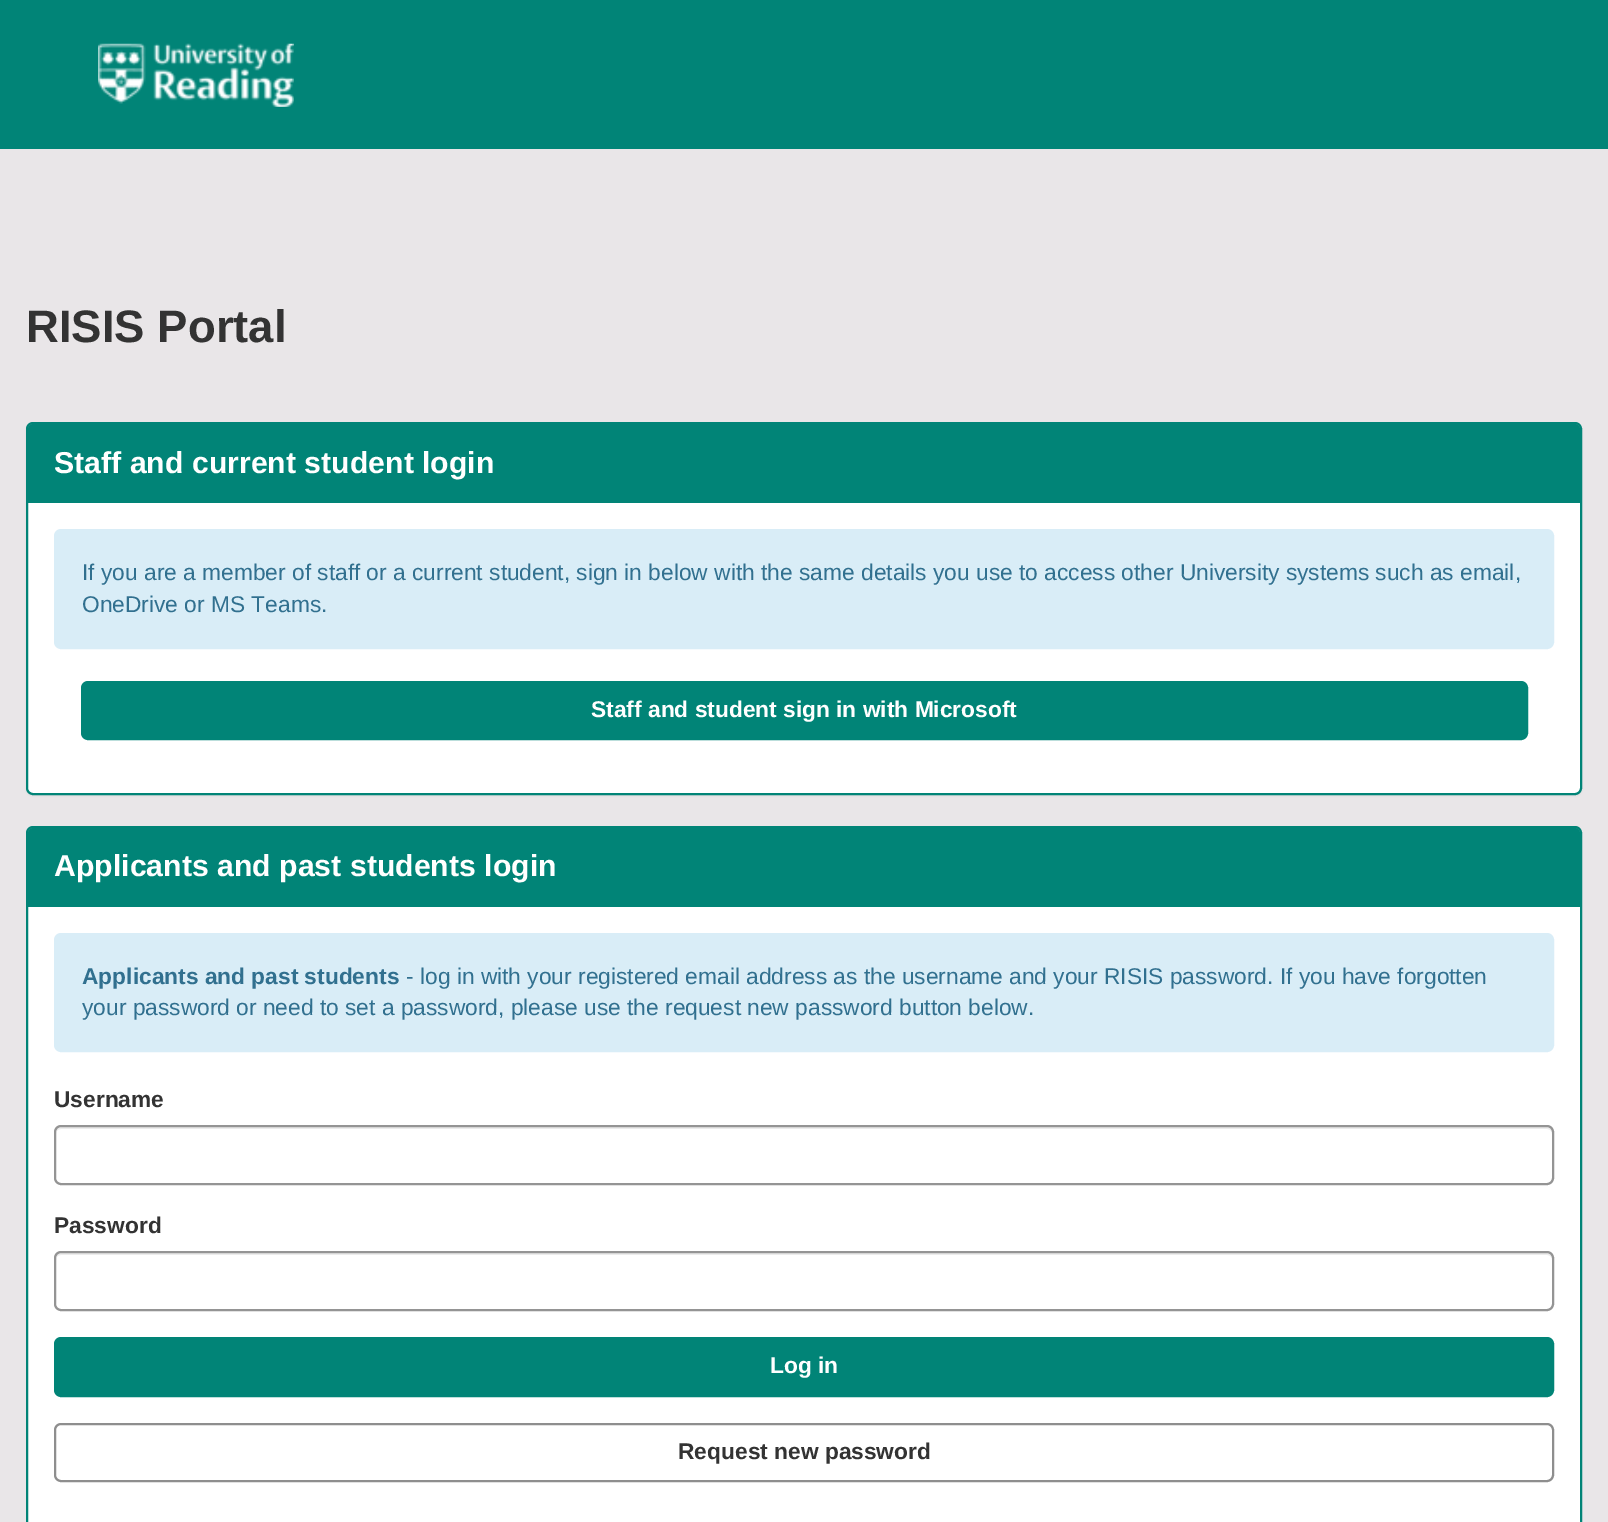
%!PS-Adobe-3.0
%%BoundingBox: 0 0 1608 1522
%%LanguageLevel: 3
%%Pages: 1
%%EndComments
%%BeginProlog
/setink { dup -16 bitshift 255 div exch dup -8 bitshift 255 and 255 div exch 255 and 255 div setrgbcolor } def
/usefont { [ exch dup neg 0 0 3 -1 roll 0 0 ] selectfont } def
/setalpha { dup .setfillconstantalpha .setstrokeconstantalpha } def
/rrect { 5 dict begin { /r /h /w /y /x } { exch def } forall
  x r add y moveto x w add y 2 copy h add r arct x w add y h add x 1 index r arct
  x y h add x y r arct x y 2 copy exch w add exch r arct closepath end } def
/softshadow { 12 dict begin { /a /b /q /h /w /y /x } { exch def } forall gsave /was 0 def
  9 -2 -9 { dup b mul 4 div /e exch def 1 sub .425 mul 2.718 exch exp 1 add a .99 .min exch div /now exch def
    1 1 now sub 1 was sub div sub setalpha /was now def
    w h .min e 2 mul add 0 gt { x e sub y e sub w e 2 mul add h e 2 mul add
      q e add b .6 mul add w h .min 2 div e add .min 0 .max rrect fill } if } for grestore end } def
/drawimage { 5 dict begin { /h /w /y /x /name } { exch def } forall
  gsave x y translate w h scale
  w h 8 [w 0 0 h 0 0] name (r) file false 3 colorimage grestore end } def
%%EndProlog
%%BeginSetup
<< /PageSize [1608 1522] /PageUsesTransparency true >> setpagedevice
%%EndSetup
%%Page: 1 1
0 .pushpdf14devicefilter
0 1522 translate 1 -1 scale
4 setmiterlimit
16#E9E6E8 setink
0 0 1608 1522 rectfill
16#018477 setink
0 0 1608 149 rectfill
(img1.raw) 98 43 196 64 drawimage
/LiberationSans-Bold 45.5 usefont
16#333333 setink
26 342 moveto (RISIS Portal) show
16#000000 setink
26 424 1556 372 7 1 0.05 softshadow
16#FFFFFF setink
27 423 1554 371 6 rrect gsave fill grestore
16#018477 setink
2 setlinewidth
stroke
33 424 moveto 1575 424 lineto 1578 424 1580 426 1580 429 curveto 1580 502 lineto 28 502 lineto 28 429 lineto 28 426 30 424 33 424 curveto closepath fill
28 502 1552 1 rectfill
/LiberationSans-Bold 30.25 usefont
16#FFFFFF setink
54 473 moveto (Staff and current student login) show
16#D9EDF7 setink
55 530 1498 118 6 rrect gsave fill grestore
stroke
/LiberationSans-Regular 22.75 usefont
16#31708F setink
82 580 moveto (If you are a member of staff or a current student, sign in below with the same details you use to access other University systems such as email,) show
82 612 moveto (OneDrive or MS Teams.) show
16#018477 setink
82 682 1445 57 6 rrect gsave fill grestore
stroke
/LiberationSans-Bold 22.75 usefont
16#FFFFFF setink
591 717 moveto (Staff and student sign in with Microsoft) show
27 827 1554 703 6 rrect gsave fill grestore
16#018477 setink
stroke
33 828 moveto 1575 828 lineto 1578 828 1580 830 1580 833 curveto 1580 907 lineto 28 907 lineto 28 833 lineto 28 830 30 828 33 828 curveto closepath fill
/LiberationSans-Bold 30.25 usefont
16#FFFFFF setink
54 876 moveto (Applicants and past students login) show
16#D9EDF7 setink
55 934 1498 117 6 rrect gsave fill grestore
stroke
/LiberationSans-Bold 22.75 usefont
16#31708F setink
82 984 moveto (Applicants and past students) show
/LiberationSans-Regular 22.75 usefont
406 984 moveto (- log in with your registered email address as the username and your RISIS password. If you have forgotten) show
82 1015 moveto (your password or need to set a password, please use the request new password button below.) show
/LiberationSans-Bold 22.75 usefont
16#333333 setink
54 1107 moveto (Username) show
16#ECECEC setink
61 1129 moveto 1547 1129 lineto 1550 1129 1552 1131 1552 1134 curveto 1552 1131 1551 1127 1547 1127 curveto 61 1127 lineto 57 1127 56 1131 56 1134 curveto 56 1131 58 1129 61 1129 curveto closepath fill
16#949494 setink
55 1126 1498 58 6 rrect stroke
16#333333 setink
54 1233 moveto (Password) show
16#ECECEC setink
61 1255 moveto 1547 1255 lineto 1550 1255 1552 1257 1552 1260 curveto 1552 1257 1551 1253 1547 1253 curveto 61 1253 lineto 57 1253 56 1257 56 1260 curveto 56 1257 58 1255 61 1255 curveto closepath fill
16#949494 setink
55 1252 1498 58 6 rrect stroke
16#018477 setink
55 1338 1498 58 6 rrect gsave fill grestore
stroke
16#FFFFFF setink
770 1373 moveto (Log in) show
16#8E8E8E setink
55 1424 1498 57 6 rrect stroke
16#333333 setink
678 1459 moveto (Request new password) show
.poppdf14devicefilter showpage
%%EOF
